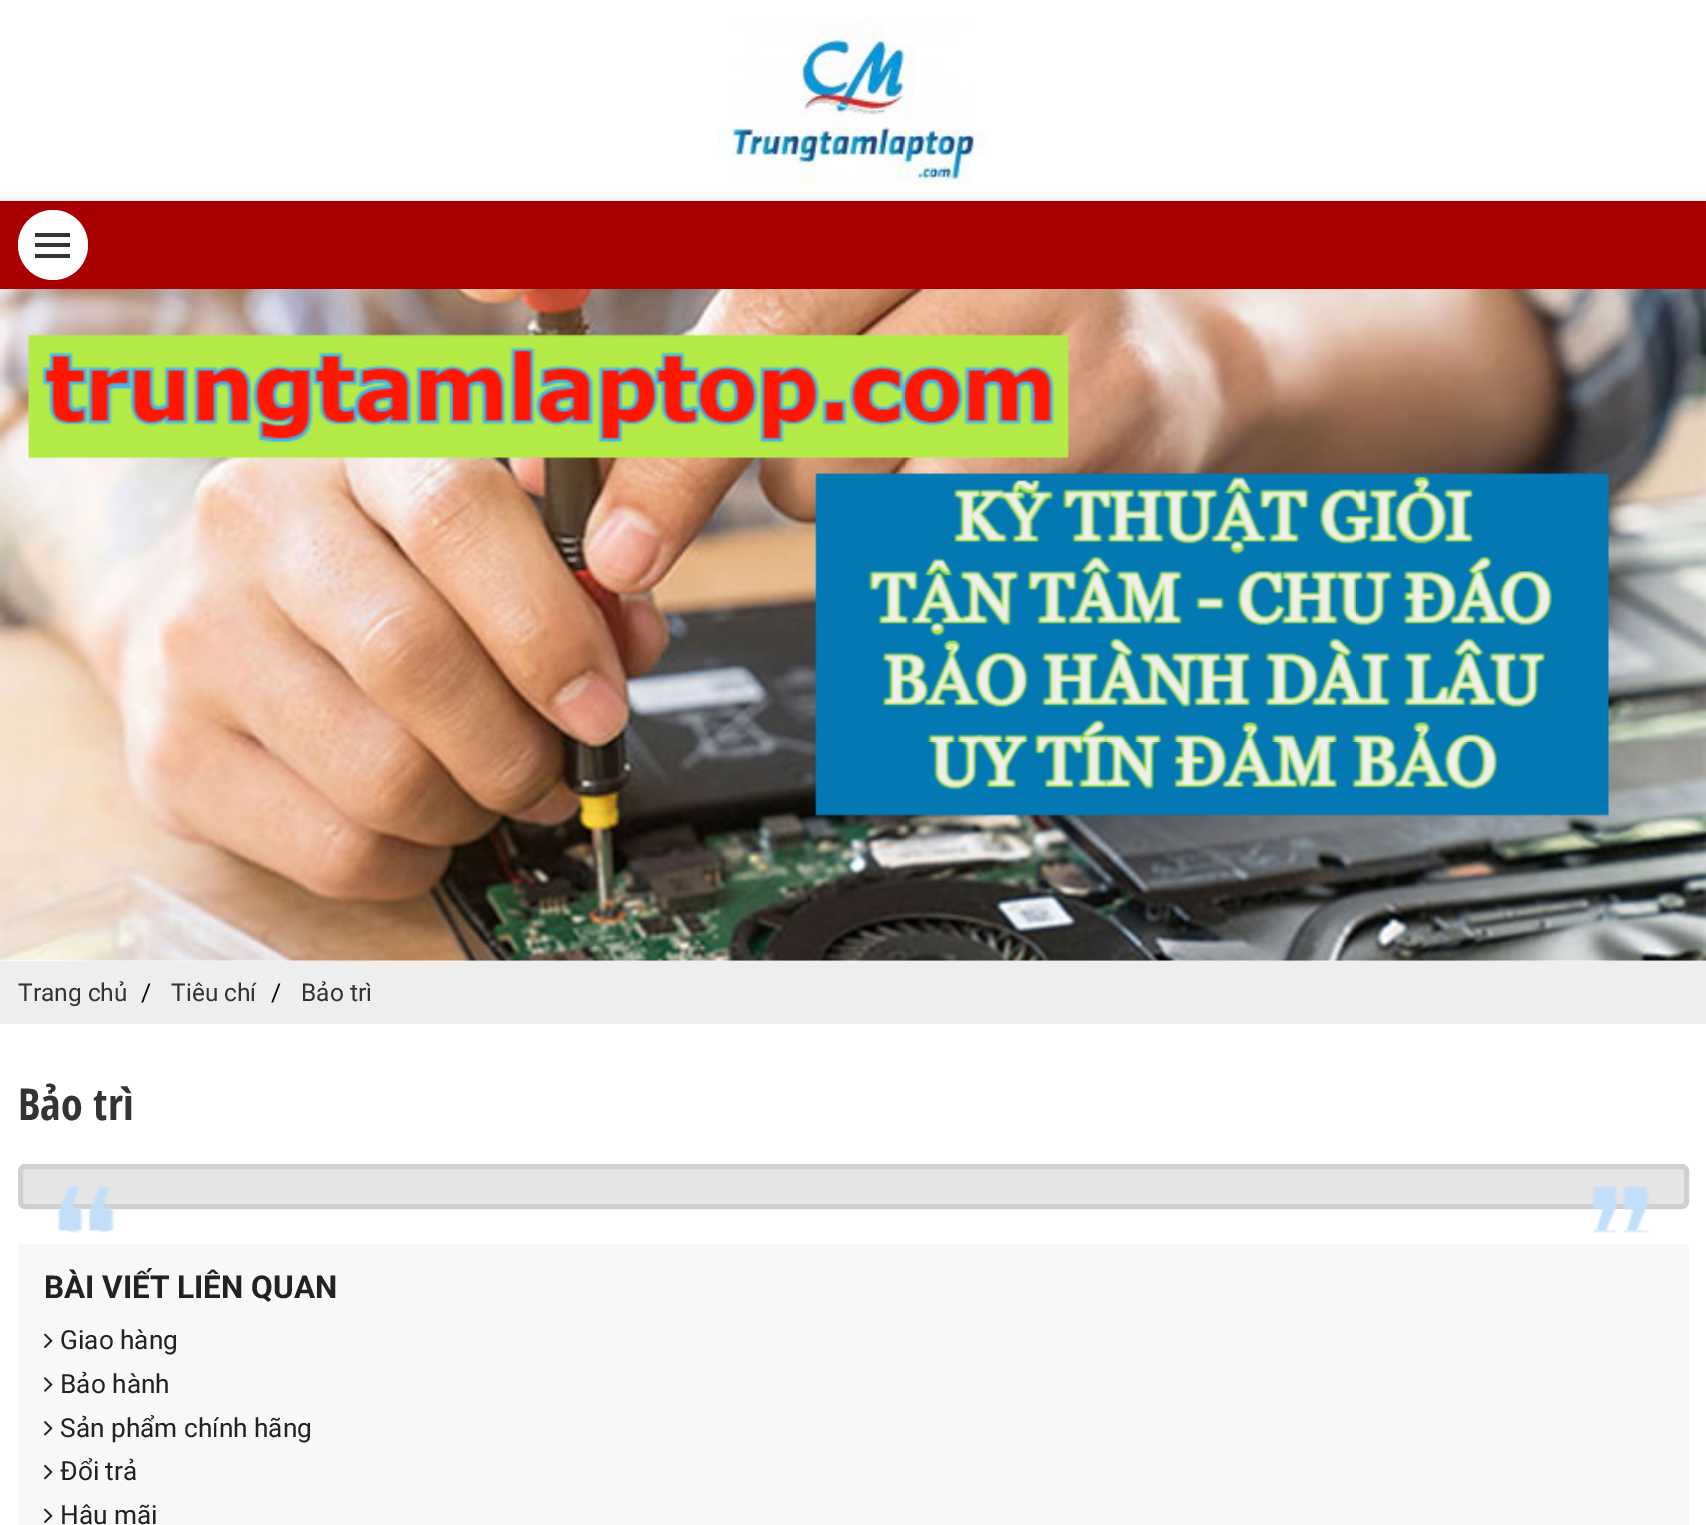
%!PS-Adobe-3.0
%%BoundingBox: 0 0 1706 1525
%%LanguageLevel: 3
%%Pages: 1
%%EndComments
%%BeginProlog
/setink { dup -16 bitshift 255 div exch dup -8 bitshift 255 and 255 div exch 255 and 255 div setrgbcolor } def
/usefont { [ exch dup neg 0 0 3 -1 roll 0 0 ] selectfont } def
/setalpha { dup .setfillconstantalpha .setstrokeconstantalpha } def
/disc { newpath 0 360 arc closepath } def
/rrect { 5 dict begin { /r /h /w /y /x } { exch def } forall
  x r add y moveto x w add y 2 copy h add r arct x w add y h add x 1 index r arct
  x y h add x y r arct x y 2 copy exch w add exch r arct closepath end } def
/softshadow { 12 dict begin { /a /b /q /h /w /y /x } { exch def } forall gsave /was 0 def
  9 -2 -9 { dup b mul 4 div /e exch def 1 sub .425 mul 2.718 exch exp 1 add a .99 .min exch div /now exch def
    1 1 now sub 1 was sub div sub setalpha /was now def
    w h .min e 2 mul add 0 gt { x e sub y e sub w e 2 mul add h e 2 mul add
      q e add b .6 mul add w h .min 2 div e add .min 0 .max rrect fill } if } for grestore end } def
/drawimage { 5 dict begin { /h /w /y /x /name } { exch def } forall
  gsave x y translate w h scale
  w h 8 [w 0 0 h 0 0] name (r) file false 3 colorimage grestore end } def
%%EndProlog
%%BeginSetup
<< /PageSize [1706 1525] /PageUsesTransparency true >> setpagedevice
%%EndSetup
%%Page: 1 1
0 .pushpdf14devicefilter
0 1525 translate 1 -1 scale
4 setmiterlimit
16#FFFFFF setink
0 0 1706 1525 rectfill
(img1.raw) 717 17 272 167 drawimage
16#E6E6E6 setink
0 201 1706 88 0 4.5 1 softshadow
16#A90003 setink
0 201 1706 88 rectfill
16#FFFFFF setink
53 245 35 disc fill
[
    [35 243 35 4 16#333333]
    [35 233 35 4 16#333333]
    [35 254 35 4 16#333333]
] { aload pop setink rectfill } forall
(img2.raw) 0 289 1706 672 drawimage
16#EEEEEE setink
0 961 1706 63 rectfill
/Roboto-Regular 24.5 usefont
16#333333 setink
18 1001 moveto (Trang chủ) show
16#000000 setink
141 1001 moveto (/) show
16#333333 setink
171 1001 moveto (Tiêu chí) show
16#000000 setink
271 1001 moveto (/) show
16#333333 setink
301 1001 moveto (Bảo trì) show
/OpenSansCondensed-Bold 44 usefont
18 1120 moveto (Bảo trì) show
16#E6E6E6 setink
20.5 1166.5 1666 40 4.5 rrect gsave fill grestore
16#D0D0D0 setink
5 setlinewidth
stroke
(img3.raw) 58 1186 56 47 drawimage
(img4.raw) 1592 1186 57 47 drawimage
16#F8F8F8 setink
18 1244 1671 281 rectfill
/Roboto-Bold 31.5 usefont
16#222222 setink
44 1298 moveto (BÀI VIẾT LIÊN QUAN) show
(img5.raw) 44 1333 9 16 drawimage
/Roboto-Regular 26.25 usefont
60 1349 moveto (Giao hàng) show
(img6.raw) 44 1377 9 15 drawimage
60 1393 moveto (Bảo hành) show
(img7.raw) 44 1421 9 15 drawimage
60 1437 moveto (Sản phẩm chính hãng) show
(img8.raw) 44 1464 9 16 drawimage
60 1480 moveto (Đổi trả) show
(img5.raw) 44 1508 9 16 drawimage
60 1524 moveto (Hậu mãi) show
.poppdf14devicefilter showpage
%%EOF
